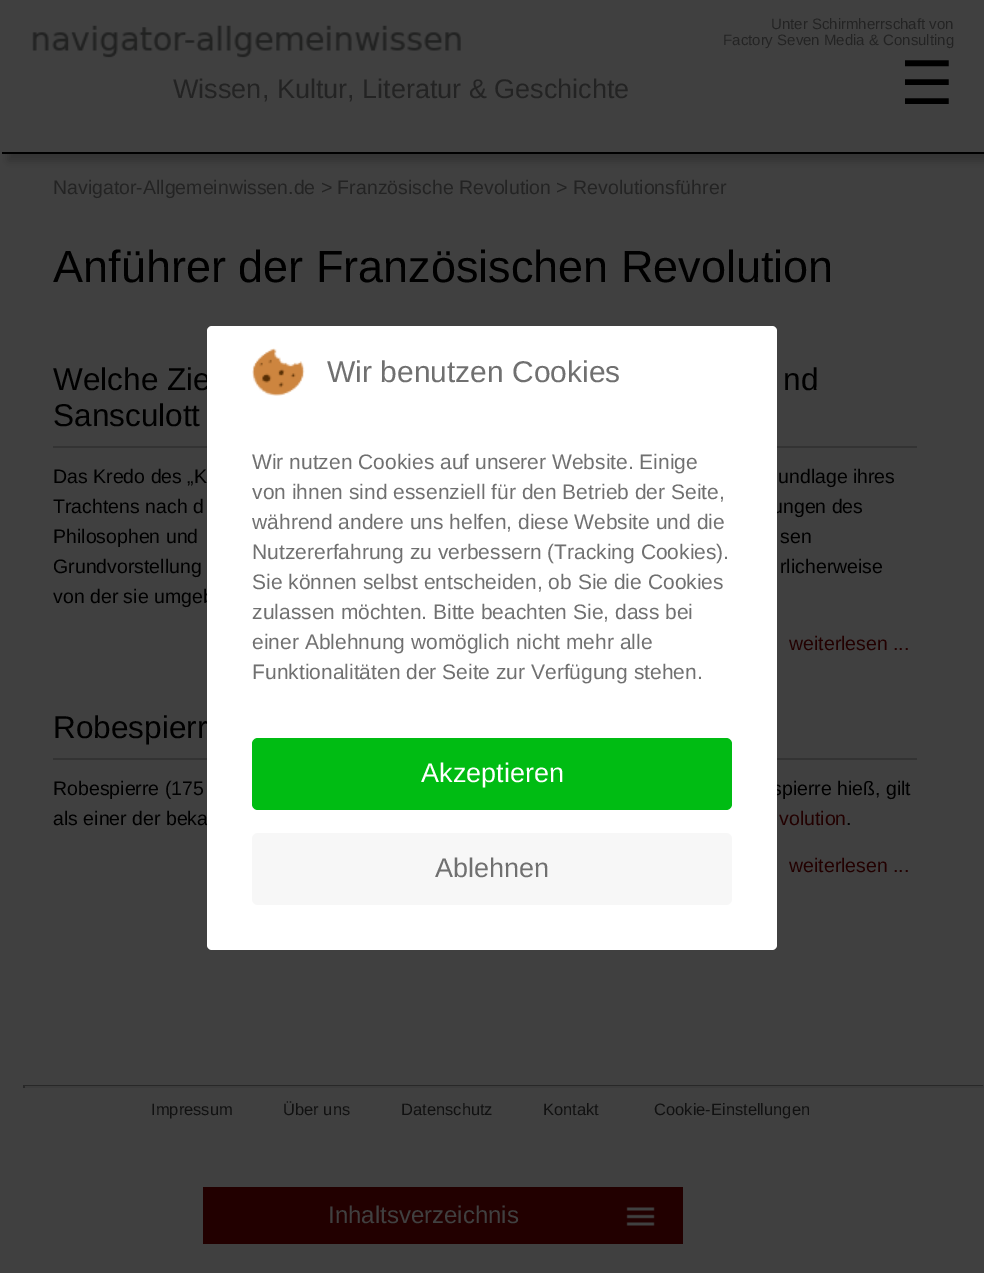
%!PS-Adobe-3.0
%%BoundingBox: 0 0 984 1273
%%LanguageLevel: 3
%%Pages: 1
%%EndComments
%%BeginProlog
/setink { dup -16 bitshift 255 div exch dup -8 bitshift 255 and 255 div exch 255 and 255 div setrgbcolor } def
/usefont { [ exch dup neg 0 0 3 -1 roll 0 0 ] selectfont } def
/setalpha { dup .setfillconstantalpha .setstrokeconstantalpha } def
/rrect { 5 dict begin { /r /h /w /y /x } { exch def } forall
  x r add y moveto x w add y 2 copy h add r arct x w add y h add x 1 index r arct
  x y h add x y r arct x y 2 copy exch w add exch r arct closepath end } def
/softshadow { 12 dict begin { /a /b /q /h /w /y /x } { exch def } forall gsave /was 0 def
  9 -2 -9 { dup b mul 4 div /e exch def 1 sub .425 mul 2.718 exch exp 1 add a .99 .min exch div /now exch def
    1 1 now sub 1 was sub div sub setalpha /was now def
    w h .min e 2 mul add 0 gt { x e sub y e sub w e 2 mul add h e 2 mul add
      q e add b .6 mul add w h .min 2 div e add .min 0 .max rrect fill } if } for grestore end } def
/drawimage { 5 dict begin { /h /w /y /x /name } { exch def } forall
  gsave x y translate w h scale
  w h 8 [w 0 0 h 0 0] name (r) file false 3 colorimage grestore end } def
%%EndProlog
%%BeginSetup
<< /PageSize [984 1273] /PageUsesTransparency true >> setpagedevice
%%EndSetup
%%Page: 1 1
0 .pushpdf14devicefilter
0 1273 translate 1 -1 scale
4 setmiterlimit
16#404040 setink
0 0 984 1273 rectfill
gsave
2 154 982 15 rectclip
16#333333 setink
8 11 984 150 0 4 1 softshadow
grestore
/LiberationSans-Regular 15 usefont
16#232323 setink
771 29 moveto (Unter Schirmherrschaft von) show
723 45 moveto (Factory Seven Media & Consulting) show
16#000000 setink
0 152 984 2 rectfill
(img1.raw) 32 25 429 33 drawimage
/LiberationSans-Regular 27 usefont
16#232323 setink
173 98 moveto (Wissen, Kultur, Literatur & Geschichte) show
/DejaVuSans-Regular 60 usefont
16#000000 setink
900 104 moveto (☰) show
/LiberationSans-Regular 19.5 usefont
16#232323 setink
53 194 moveto (Navigator-Allgemeinwissen.de > Französische Revolution > Revolutionsführer) show
16#404040 setink
0 152 2 2 rectfill
/LiberationSans-Regular 45 usefont
16#000000 setink
53 282 moveto (Anführer der Französischen Revolution) show
16#333333 setink
53 446 864 2 rectfill
/LiberationSans-Regular 31.5 usefont
16#000000 setink
[
    [(Welche Zie) 53 390]
    [(nd) 783 390]
    [(Sansculott) 53 426]
] { aload pop moveto show } forall
/LiberationSans-Regular 19.5 usefont
[
    [(Das Kredo des „K) 53 483]
    [(undlage ihres) 778 483]
    [(Trachtens nach d) 53 513]
    [(ungen des) 772 513]
    [(Philosophen und) 53 543]
    [(sen) 780 543]
    [(Grundvorstellung) 53 573]
    [(rlicherweise) 780 573]
    [(von der sie umgeb) 53 603]
] { aload pop moveto show } forall
16#220000 setink
789 650 moveto (weiterlesen ...) show
16#333333 setink
53 758 864 2 rectfill
/LiberationSans-Regular 31.5 usefont
16#000000 setink
53 738 moveto (Robespierr) show
/LiberationSans-Regular 19.5 usefont
[
    [(Robespierre \(175) 53 795]
    [(spierre hieß, gilt) 772 795]
    [(als einer der beka) 53 825]
] { aload pop moveto show } forall
16#220000 setink
779 825 moveto (volution) show
16#000000 setink
846 825 moveto (.) show
16#220000 setink
789 872 moveto (weiterlesen ...) show
203 1187 480 57 rectfill
/LiberationSans-Regular 24 usefont
16#404040 setink
328 1223 moveto (Inhaltsverzeichnis) show
(img2.raw) 626 1207 29 19 drawimage
16#FFFFFF setink
207 326 570 624 5 rrect fill
(img3.raw) 252 348 53 48 drawimage
/LiberationSans-Regular 30 usefont
16#707070 setink
327 382 moveto (Wir benutzen Cookies) show
/LiberationSans-Regular 21 usefont
[
    [(Wir nutzen Cookies auf unserer Website. Einige) 252 469]
    [(von ihnen sind essenziell für den Betrieb der Seite,) 252 499]
    [(während andere uns helfen, diese Website und die) 252 529]
    [(Nutzererfahrung zu verbessern \(Tracking Cookies\).) 252 559]
    [(Sie können selbst entscheiden, ob Sie die Cookies) 252 589]
    [(zulassen möchten. Bitte beachten Sie, dass bei) 252 619]
    [(einer Ablehnung womöglich nicht mehr alle) 252 649]
    [(Funktionalitäten der Seite zur Verfügung stehen.) 252 679]
] { aload pop moveto show } forall
16#00BC13 setink
252 738 480 72 6 rrect fill
/LiberationSans-Regular 27 usefont
16#FFFFFF setink
421 782 moveto (Akzeptieren) show
16#F7F7F7 setink
252 833 480 72 6 rrect fill
16#707070 setink
435 877 moveto (Ablehnen) show
[
    [23 1085 961 1 16#282828]
    [983 1085 1 3 16#3C3C3C]
    [23 1086 961 2 16#3C3C3C]
    [23 1085 2 3 16#282828]
] { aload pop setink rectfill } forall
/LiberationSans-Regular 16.5 usefont
16#111111 setink
[
    [(Impressum) 151 1115]
    [(Über uns) 283 1115]
    [(Datenschutz) 401 1115]
    [(Kontakt) 543 1115]
    [(Cookie-Einstellungen) 654 1115]
] { aload pop moveto show } forall
.poppdf14devicefilter showpage
%%EOF
